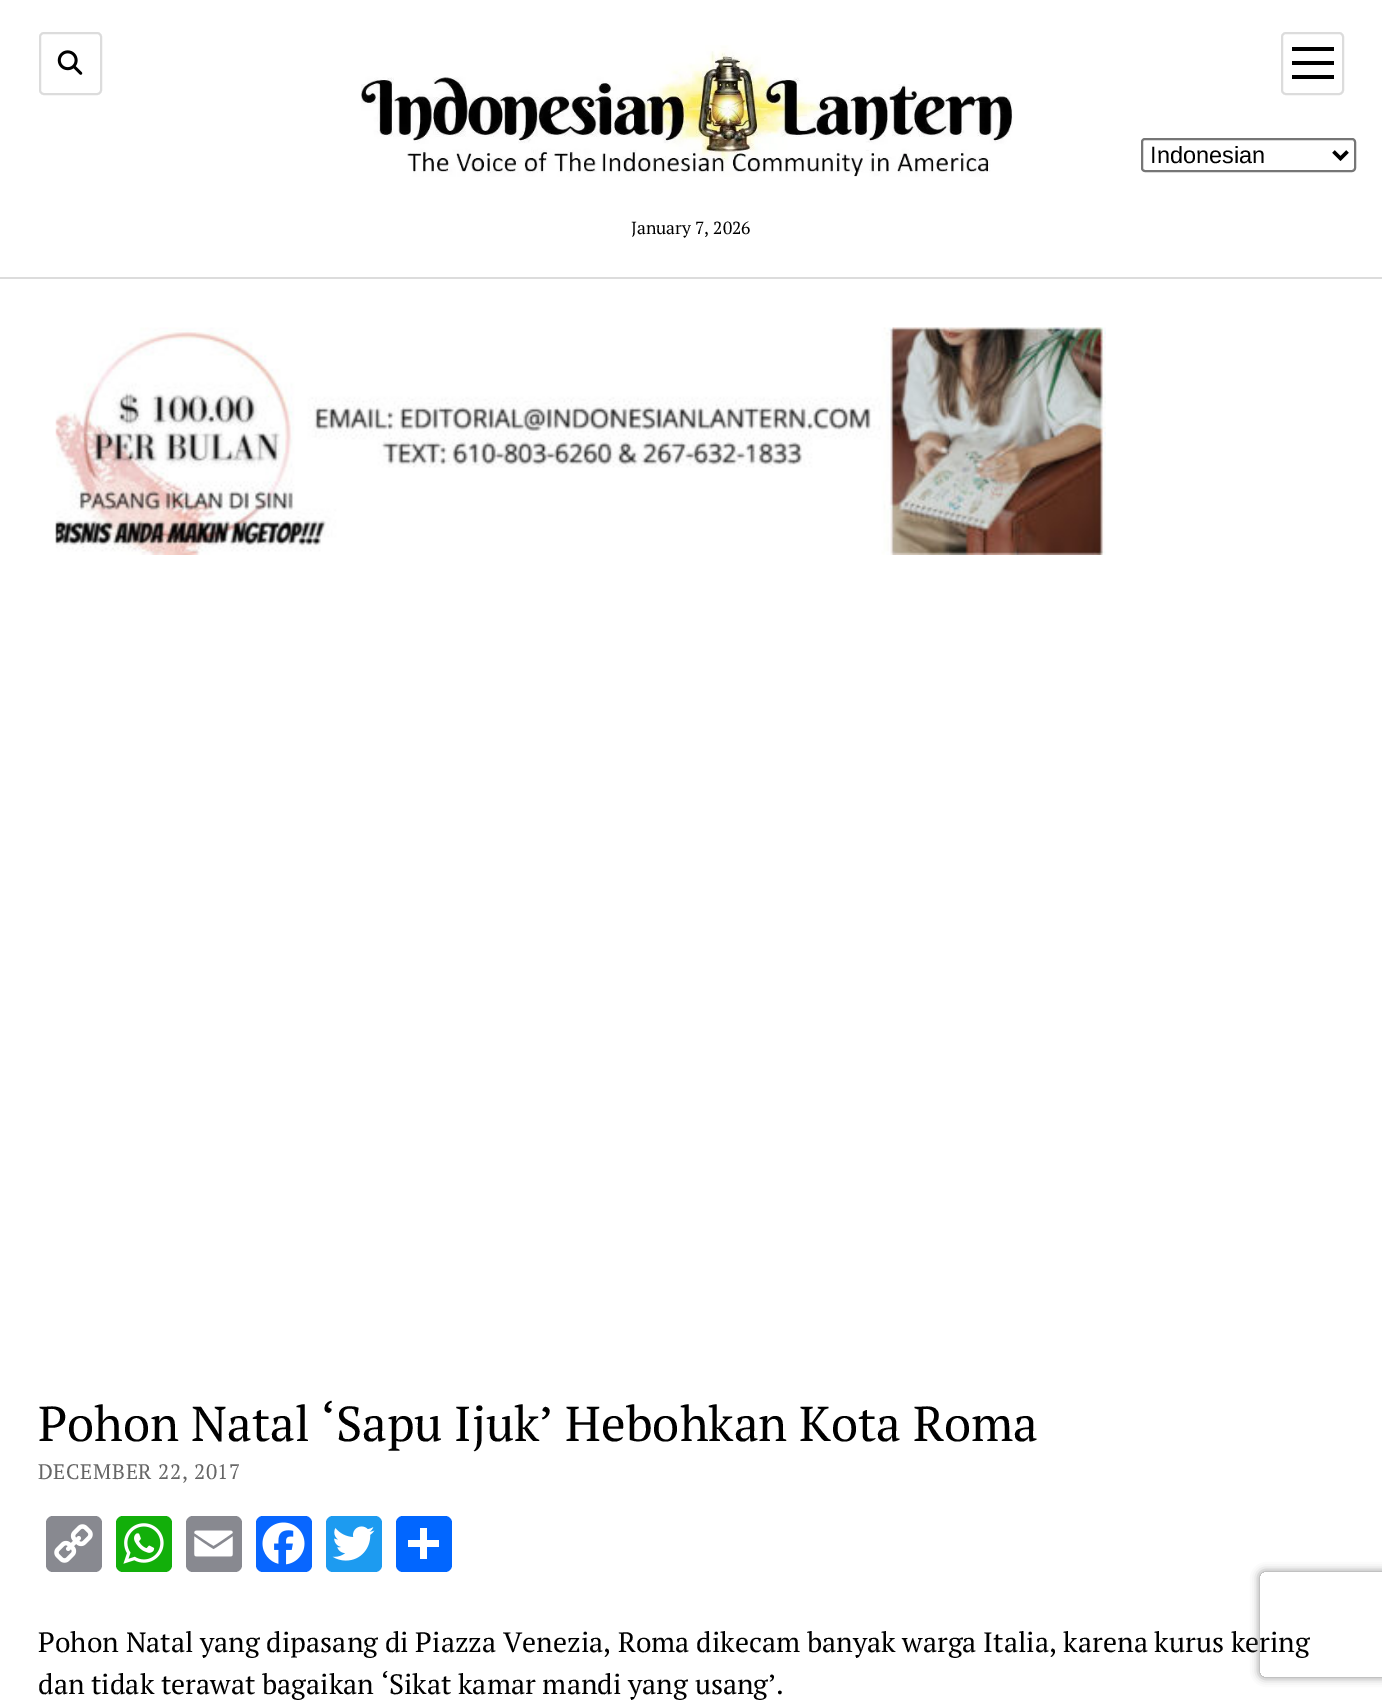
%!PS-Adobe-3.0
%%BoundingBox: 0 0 1382 1700
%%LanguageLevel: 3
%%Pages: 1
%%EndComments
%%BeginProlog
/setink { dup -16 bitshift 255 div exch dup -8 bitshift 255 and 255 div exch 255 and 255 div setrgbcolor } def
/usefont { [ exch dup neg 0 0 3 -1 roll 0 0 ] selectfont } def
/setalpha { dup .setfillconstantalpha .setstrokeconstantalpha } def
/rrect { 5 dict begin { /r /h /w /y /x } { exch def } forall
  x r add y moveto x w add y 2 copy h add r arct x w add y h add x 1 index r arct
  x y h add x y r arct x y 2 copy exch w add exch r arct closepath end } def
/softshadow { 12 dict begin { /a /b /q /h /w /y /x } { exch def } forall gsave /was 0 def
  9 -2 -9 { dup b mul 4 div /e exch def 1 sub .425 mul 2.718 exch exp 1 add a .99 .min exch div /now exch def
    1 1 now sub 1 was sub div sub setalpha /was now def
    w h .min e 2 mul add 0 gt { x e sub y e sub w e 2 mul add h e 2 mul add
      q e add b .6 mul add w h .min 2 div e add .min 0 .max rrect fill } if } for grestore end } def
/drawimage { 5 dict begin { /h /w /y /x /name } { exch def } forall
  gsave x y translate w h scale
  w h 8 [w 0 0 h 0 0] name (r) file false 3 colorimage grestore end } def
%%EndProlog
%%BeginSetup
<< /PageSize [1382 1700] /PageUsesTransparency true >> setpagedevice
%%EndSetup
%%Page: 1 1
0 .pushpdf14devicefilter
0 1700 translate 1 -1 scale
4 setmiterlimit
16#FFFFFF setink
0 0 1382 1700 rectfill
16#767676 setink
2 setlinewidth
1142 139 213 32 3 rrect stroke
16#000000 setink
3.5 setlinewidth
1333.5 151.5 moveto 1340.5 158.5 lineto 1347.5 151.5 lineto stroke
/LiberationSans-Regular 23.5 usefont
1150 163 moveto (Indonesian) show
16#DCDCDC setink
0 277 1382 2 rectfill
2 setlinewidth
40 33 61 61 4 rrect stroke
(img1.raw) 57 50 26 25 drawimage
1282 33 61 61 4 rrect stroke
[
    [1292 47 42 4 16#000000]
    [1292 61 42 4 16#000000]
    [1292 75 42 4 16#000000]
] { aload pop setink rectfill } forall
(img2.raw) 361 45 652 132 drawimage
/PTSerif-Regular 17.5 usefont
631 234 moveto (January 7, 2026) show
(img3.raw) 55 327 1051 228 drawimage
/PTSerif-Regular 49 usefont
38 1441 moveto (Pohon Natal ‘Sapu Ijuk’ Hebohkan Kota Roma) show
/PTSerif-Regular 21 usefont
16#666666 setink
38 1479 moveto 0.6 0 (DECEMBER 22, 2017) ashow
16#888990 setink
46 1516 56 56 7 rrect fill
(img4.raw) 54 1524 39 39 drawimage
16#12AF0A setink
116 1516 56 56 7 rrect fill
(img5.raw) 123 1523 41 41 drawimage
16#888990 setink
186 1516 56 56 7 rrect fill
(img6.raw) 194 1530 39 27 drawimage
16#0866FF setink
256 1516 56 56 7 rrect fill
(img7.raw) 262 1522 43 43 drawimage
16#1D9BF0 setink
326 1516 56 56 7 rrect fill
(img8.raw) 332 1526 43 35 drawimage
16#0166FF setink
396 1516 56 56 7 rrect fill
16#FFFFFF setink
420 1528 7 31 rectfill
408 1540 31 7 rectfill
/PTSerif-Regular 28 usefont
16#000000 setink
38 1652 moveto (Pohon Natal yang dipasang di Piazza Venezia, Roma dikecam banyak warga Italia, karena kurus kering) show
38 1694 moveto (dan tidak terawat bagaikan ‘Sikat kamar mandi yang usang’.) show
gsave
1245 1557 moveto 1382 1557 lineto 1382 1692 lineto 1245 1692 lineto closepath 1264 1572 moveto 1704 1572 lineto 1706 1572 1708 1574 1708 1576 curveto 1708 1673 lineto 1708 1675 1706 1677 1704 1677 curveto 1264 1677 lineto 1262 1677 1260 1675 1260 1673 curveto 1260 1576 lineto 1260 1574 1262 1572 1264 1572 curveto closepath eoclip newpath
16#808080 setink
1260 1572 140 105 4 4.5 1 softshadow
grestore
.poppdf14devicefilter showpage
%%EOF
